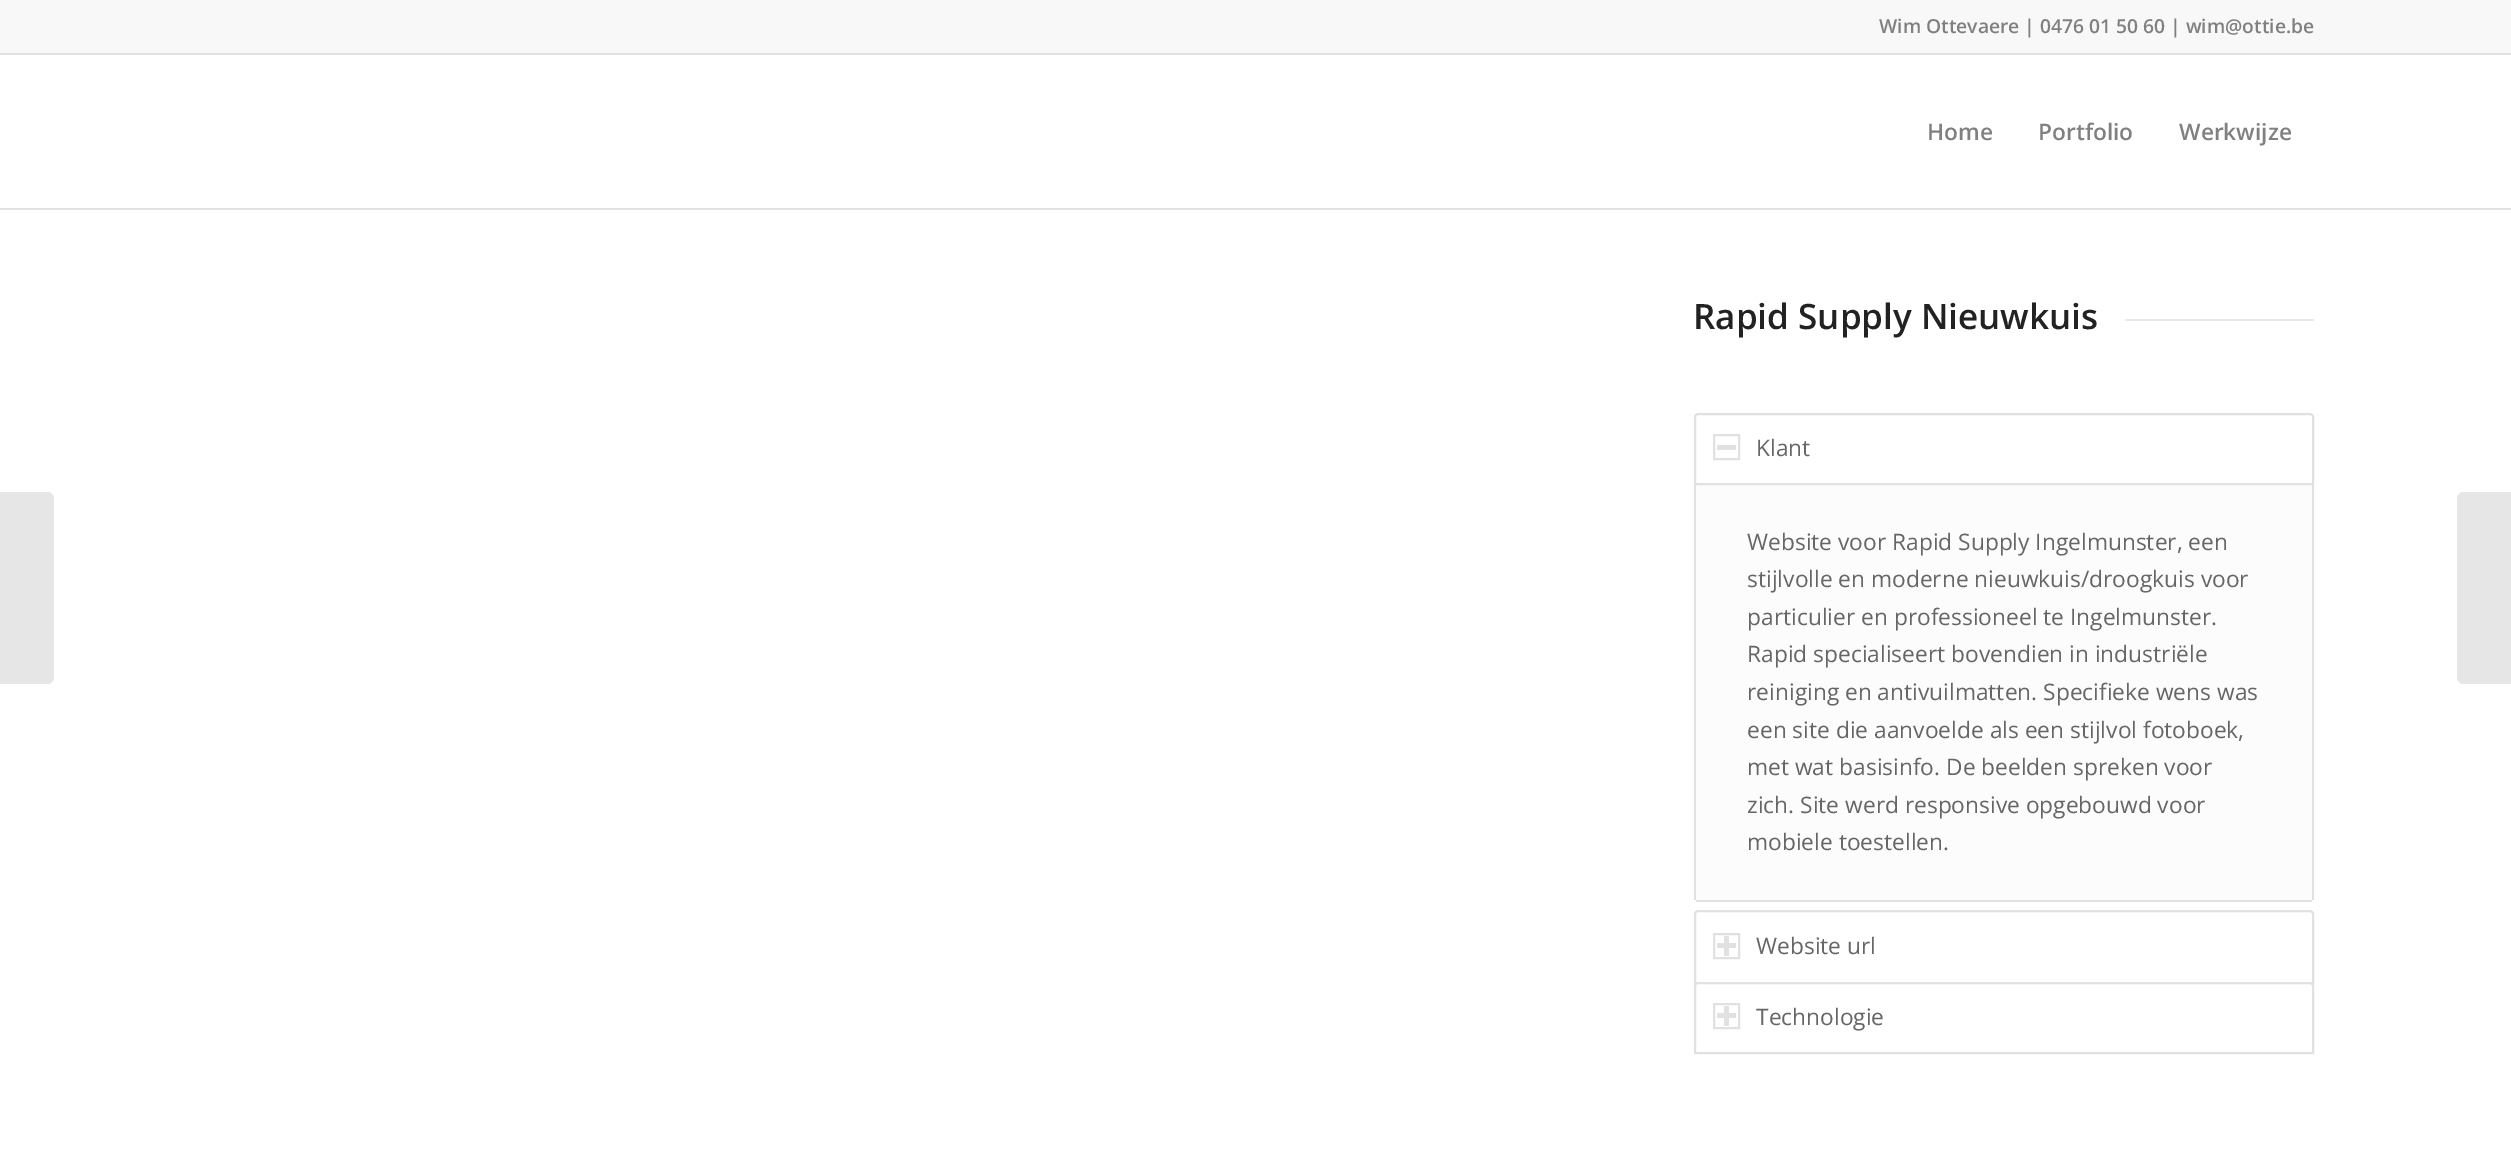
%!PS-Adobe-3.0
%%BoundingBox: 0 0 2511 1175
%%LanguageLevel: 3
%%Pages: 1
%%EndComments
%%BeginProlog
/setink { dup -16 bitshift 255 div exch dup -8 bitshift 255 and 255 div exch 255 and 255 div setrgbcolor } def
/usefont { [ exch dup neg 0 0 3 -1 roll 0 0 ] selectfont } def
%%EndProlog
%%BeginSetup
<< /PageSize [2511 1175] >> setpagedevice
%%EndSetup
%%Page: 1 1
0 1175 translate 1 -1 scale
4 setmiterlimit
16#FFFFFF setink
0 0 2511 1175 rectfill
16#F8F8F8 setink
0 0 2511 53 rectfill
16#E1E1E1 setink
0 53 2511 2 rectfill
/OpenSans-SemiBold 19.25 usefont
16#808080 setink
1879 33 moveto (Wim Ottevaere | 0476 01 50 60 | wim@ottie.be) show
16#E1E1E1 setink
0 208 2511 2 rectfill
/OpenSans-SemiBold 22.75 usefont
16#808080 setink
[
    [(Home) 1927 140]
    [(Portfolio) 2038 140]
    [(Werkwijze) 2179 140]
] { aload pop moveto show } forall
16#E6E6E6 setink
0 492 moveto 47 492 lineto 51 492 54 495 54 499 curveto 54 677 lineto 54 681 51 684 47 684 curveto 0 684 lineto closepath fill
/OpenSans-SemiBold 35 usefont
16#222222 setink
1693 329 moveto (Rapid Supply Nieuwkuis) show
16#E8E8E8 setink
2125 319 189 2 rectfill
16#FCFCFC setink
1694 483 moveto 2314 483 lineto 2314 897 lineto 2314 899 2312 901 2310 901 curveto 1698 901 lineto 1696 901 1694 899 1694 897 curveto closepath fill
16#E1E1E1 setink
2312 483 2 417 rectfill
1694 483 2 417 rectfill
16#FFFFFF setink
1698 414 moveto 2310 414 lineto 2311.5 414 2313 415.5 2313 417 curveto 2313 484 lineto 1695 484 lineto 1695 417 lineto 1695 415.5 1696.5 414 1698 414 curveto closepath gsave fill grestore
16#E1E1E1 setink
2 setlinewidth
stroke
1714 435 25 24 rectstroke
1717 445 19 5 rectfill
/OpenSans-Regular 22.75 usefont
16#666666 setink
1756 456 moveto (Klant) show
16#E1E1E1 setink
1696 900 616 2 rectfill
16#666666 setink
[
    [(Website voor Rapid Supply Ingelmunster, een) 1747 550]
    [(stijlvolle en moderne nieuwkuis/droogkuis voor) 1747 587]
    [(particulier en professioneel te Ingelmunster.) 1747 625]
    [(Rapid specialiseert bovendien in industriële) 1747 662]
    [(reiniging en antivuilmatten. Specifieke wens was) 1747 700]
    [(een site die aanvoelde als een stijlvol fotoboek,) 1747 738]
    [(met wat basisinfo. De beelden spreken voor) 1747 775]
    [(zich. Site werd responsive opgebouwd voor) 1747 813]
    [(mobiele toestellen.) 1747 850]
] { aload pop moveto show } forall
16#E1E1E1 setink
1698 911 moveto 2310 911 lineto 2311.5 911 2313 912.5 2313 914 curveto 2313 983 lineto 1695 983 lineto 1695 914 lineto 1695 912.5 1696.5 911 1698 911 curveto closepath stroke
1714 934 25 24 rectstroke
1724 936 5 20 rectfill
1717 943 19 5 rectfill
16#666666 setink
1756 954 moveto (Website url) show
16#FFFFFF setink
1698 983 moveto 2310 983 lineto 2311.5 983 2313 984.5 2313 986 curveto 2313 1053 lineto 1695 1053 lineto 1695 986 lineto 1695 984.5 1696.5 983 1698 983 curveto closepath gsave fill grestore
16#E1E1E1 setink
stroke
1714 1004 25 24 rectstroke
1724 1006 5 20 rectfill
1717 1013 19 5 rectfill
16#666666 setink
1756 1025 moveto (Technologie) show
16#E6E6E6 setink
2464 492 moveto 2511 492 lineto 2511 684 lineto 2464 684 lineto 2460 684 2457 681 2457 677 curveto 2457 499 lineto 2457 495 2460 492 2464 492 curveto closepath fill
showpage
%%EOF
